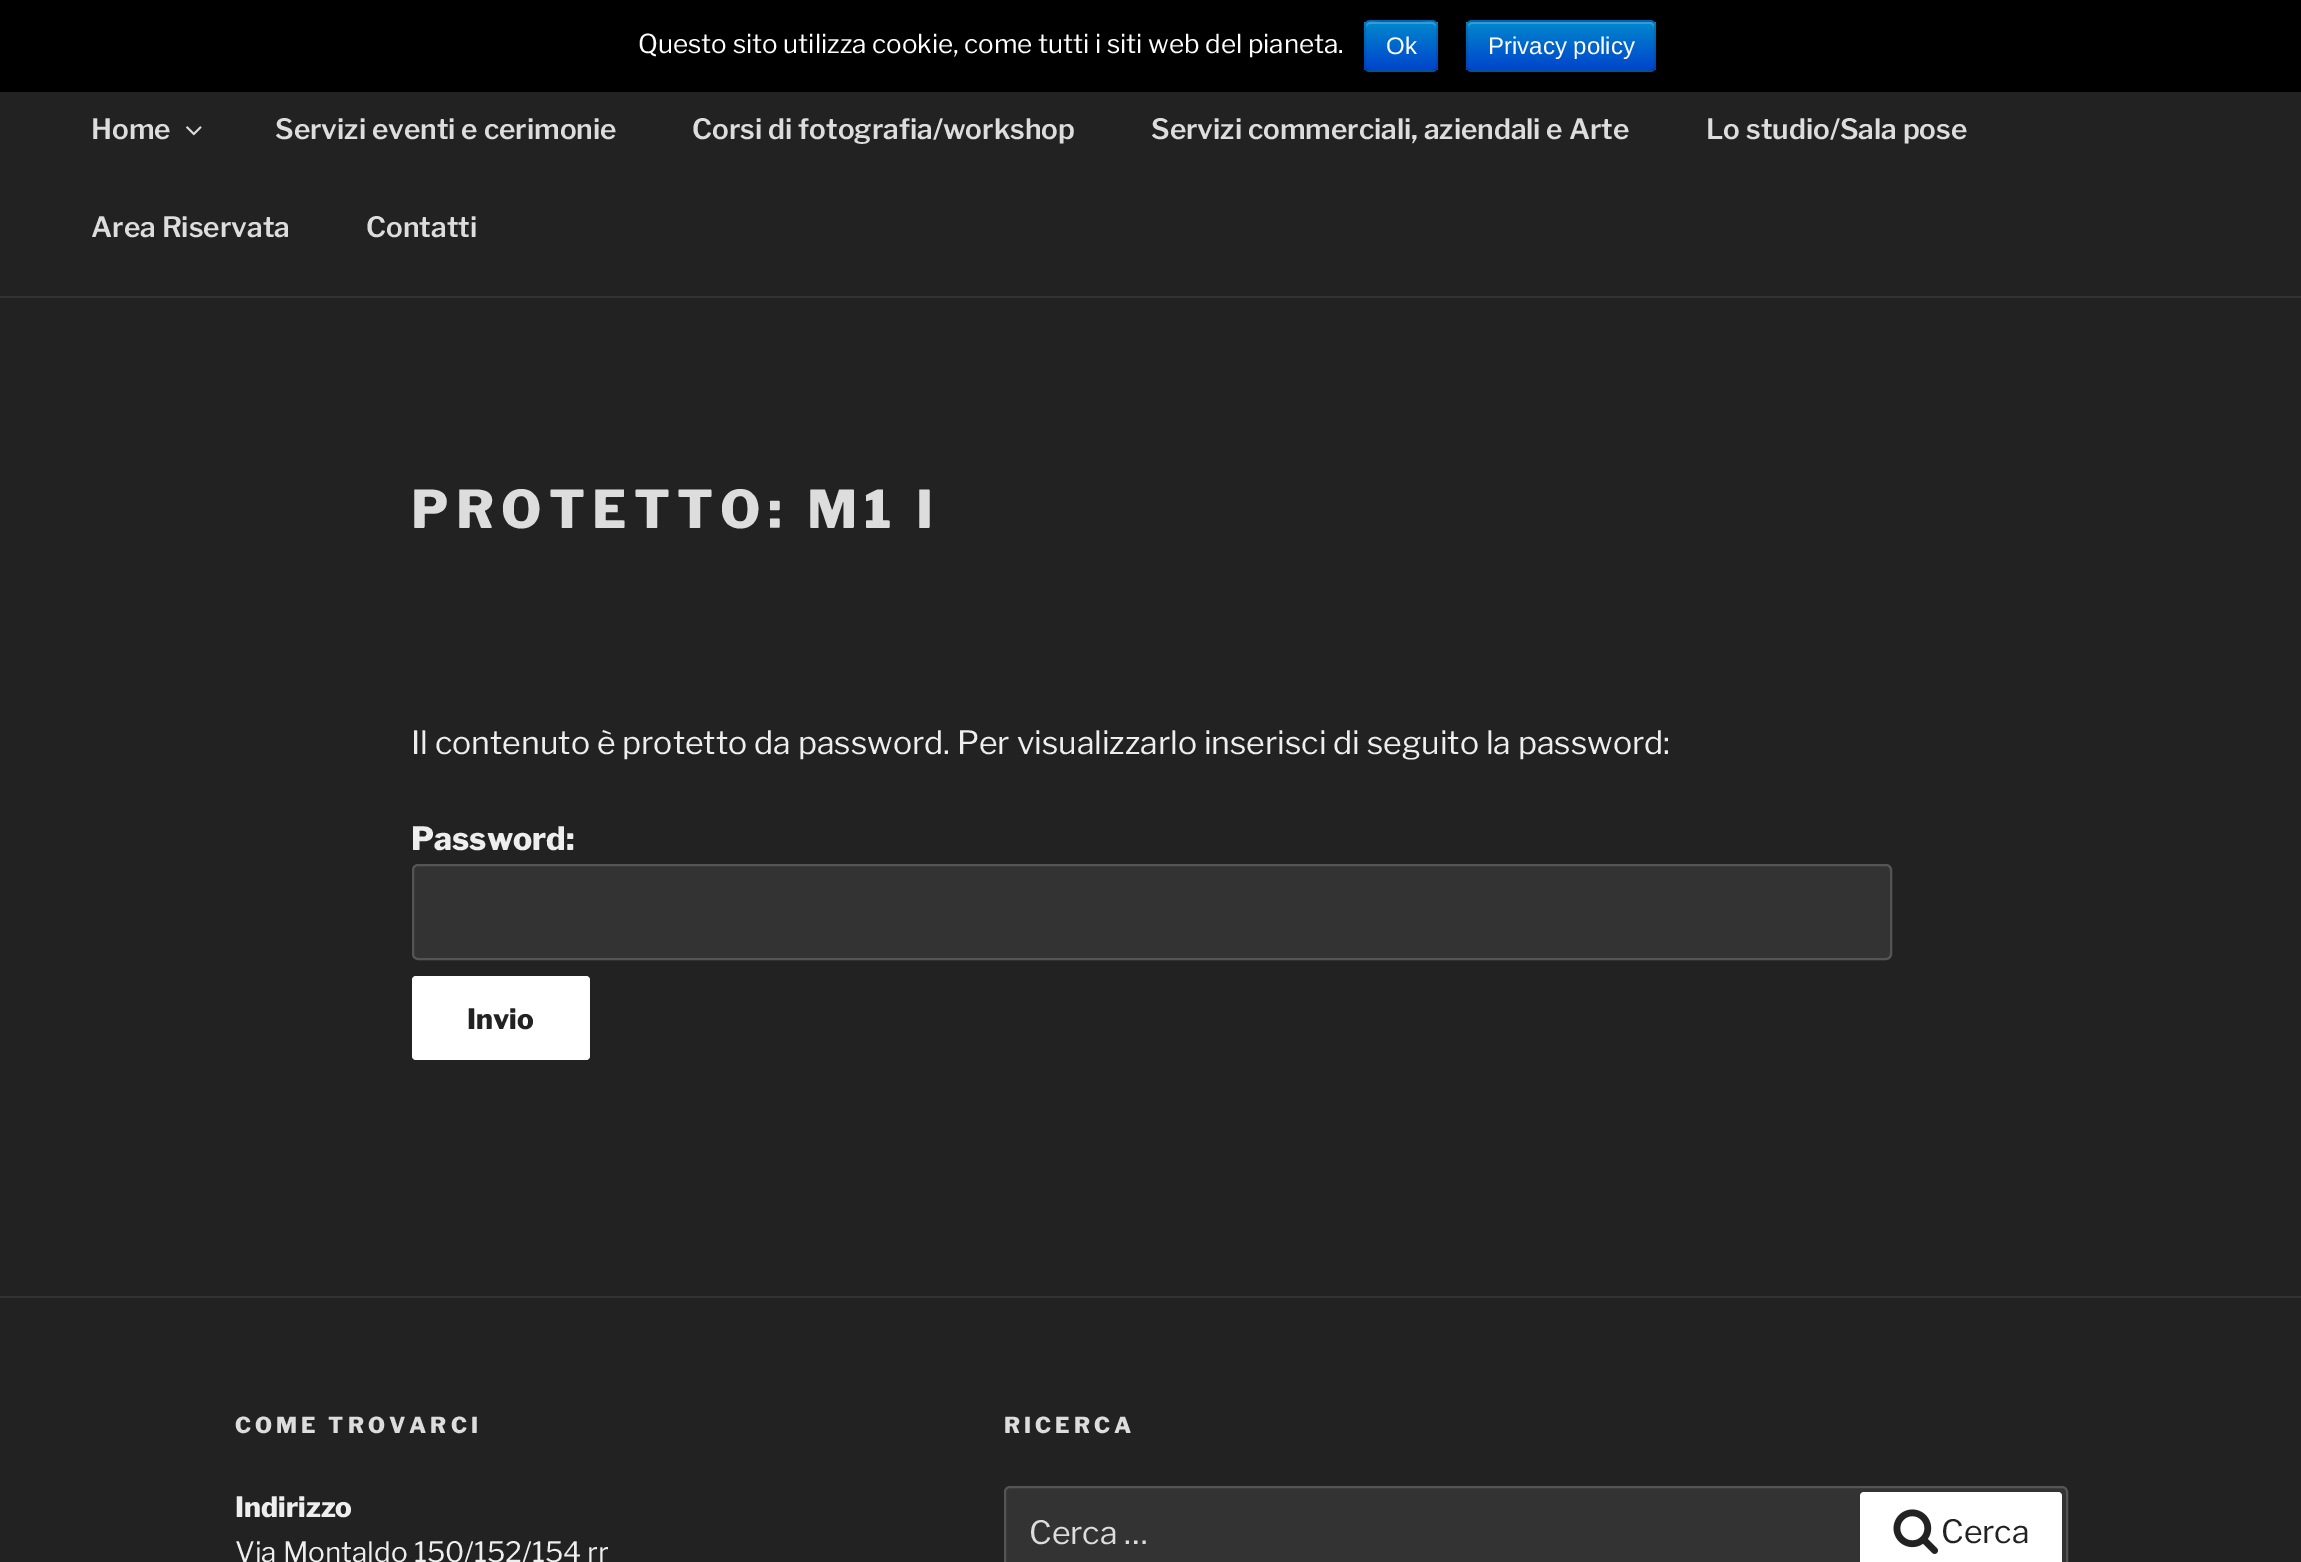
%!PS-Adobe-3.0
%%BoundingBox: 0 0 2301 1562
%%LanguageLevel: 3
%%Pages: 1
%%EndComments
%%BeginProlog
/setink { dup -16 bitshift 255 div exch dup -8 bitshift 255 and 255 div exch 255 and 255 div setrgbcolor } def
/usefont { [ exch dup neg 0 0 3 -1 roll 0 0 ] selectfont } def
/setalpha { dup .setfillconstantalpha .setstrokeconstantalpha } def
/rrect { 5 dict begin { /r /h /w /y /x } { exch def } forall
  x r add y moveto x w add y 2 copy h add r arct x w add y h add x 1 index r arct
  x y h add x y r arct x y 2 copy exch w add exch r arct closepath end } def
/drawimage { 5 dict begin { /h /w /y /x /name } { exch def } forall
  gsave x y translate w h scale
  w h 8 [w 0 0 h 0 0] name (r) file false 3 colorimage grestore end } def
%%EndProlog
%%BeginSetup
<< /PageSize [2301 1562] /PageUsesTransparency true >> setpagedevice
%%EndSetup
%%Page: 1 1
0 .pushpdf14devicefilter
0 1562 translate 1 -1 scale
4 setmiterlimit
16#222222 setink
0 0 2301 1562 rectfill
16#000000 setink
0 0 2301 92 rectfill
/LibreFranklin-Regular 26 usefont
16#FFFFFF setink
638 53 moveto (Questo sito utilizza cookie, come tutti i siti web del pianeta.) show
16#006DCC setink
1364 20 74 52 6 rrect fill
gsave
1364 20 74 52 6 rrect clip newpath
gsave 1364 22 moveto 1438 22 lineto 1438 70 lineto 1364 70 lineto closepath clip newpath
<< /ShadingType 2 /ColorSpace /DeviceRGB /Coords [1401 22 1401 70] /Extend [true true] /Function << /FunctionType 2 /Domain [0 1] /C0 [0 0.533 0.8] /C1 [0 0.267 0.8] /N 1 >> >> shfill grestore
grestore
0.2 setalpha
16#FFFFFF setink
1370 24 moveto 1432 24 lineto 1434 24 1436 26 1436 28 curveto 1436 19 1429 22 1422 22 curveto 1380 22 lineto 1373 22 1366 19 1366 28 curveto 1366 26 1368 24 1370 24 curveto closepath fill
0.25 setalpha
16#000000 setink
2 setlinewidth
1435.5 69.5 moveto 1434.5 70.5 1433.5 71 1432 71 curveto 1370 71 lineto 1368.5 71 1367.5 70.5 1366.5 69.5 curveto stroke
0.1 setalpha
1366.5 69.5 moveto 1365.5 68.5 1365 67.5 1365 66 curveto 1365 26 lineto 1365 24.5 1365.5 23.5 1366.5 22.5 curveto 1367.5 21.5 1368.5 21 1370 21 curveto 1432 21 lineto 1433.5 21 1434.5 21.5 1435.5 22.5 curveto 1436.5 23.5 1437 24.5 1437 26 curveto 1437 66 lineto 1437 67.5 1436.5 68.5 1435.5 69.5 curveto stroke
/LiberationSans-Regular 24 usefont
1 setalpha
16#FFFFFF setink
1386 54 moveto (Ok) show
16#006DCC setink
1466 20 190 52 6 rrect fill
gsave
1466 20 190 52 6 rrect clip newpath
gsave 1466 22 moveto 1656 22 lineto 1656 70 lineto 1466 70 lineto closepath clip newpath
<< /ShadingType 2 /ColorSpace /DeviceRGB /Coords [1561 22 1561 70] /Extend [true true] /Function << /FunctionType 2 /Domain [0 1] /C0 [0 0.533 0.8] /C1 [0 0.267 0.8] /N 1 >> >> shfill grestore
grestore
0.2 setalpha
16#FFFFFF setink
1472 24 moveto 1650 24 lineto 1652 24 1654 26 1654 28 curveto 1654 26 lineto 1654 24 1652 22 1650 22 curveto 1472 22 lineto 1470 22 1468 24 1468 26 curveto 1468 28 lineto 1468 26 1470 24 1472 24 curveto closepath fill
0.25 setalpha
16#000000 setink
1653.5 69.5 moveto 1652.5 70.5 1651.5 71 1650 71 curveto 1472 71 lineto 1470.5 71 1469.5 70.5 1468.5 69.5 curveto stroke
0.1 setalpha
1468.5 69.5 moveto 1467.5 68.5 1467 67.5 1467 66 curveto 1467 26 lineto 1467 24.5 1467.5 23.5 1468.5 22.5 curveto 1469.5 21.5 1470.5 21 1472 21 curveto 1650 21 lineto 1651.5 21 1652.5 21.5 1653.5 22.5 curveto 1654.5 23.5 1655 24.5 1655 26 curveto 1655 66 lineto 1655 67.5 1654.5 68.5 1653.5 69.5 curveto stroke
1 setalpha
16#FFFFFF setink
1488 54 moveto (Privacy policy) show
16#333333 setink
0 296 2301 2 rectfill
/LibreFranklin-SemiBold 28 usefont
16#DDDDDD setink
91 139 moveto (Home) show
(img1.raw) 186 126 16 10 drawimage
[
    [(Servizi eventi e cerimonie) 275 139]
    [(Corsi di fotografia/workshop) 692 139]
    [(Servizi commerciali, aziendali e Arte) 1151 139]
    [(Lo studio/Sala pose) 1706 139]
    [(Area Riservata) 91 237]
    [(Contatti) 366 237]
] { aload pop moveto show } forall
/LibreFranklin-ExtraBold 52 usefont
411 528 moveto 7.25 0 (PROTETTO: M1 I) ashow
/LibreFranklin-Regular 32 usefont
16#EEEEEE setink
411 754 moveto (Il contenuto è protetto da password. Per visualizzarlo inserisci di seguito la password:) show
/LibreFranklin-ExtraBold 32 usefont
411 850 moveto (Password:) show
16#333333 setink
413 865 1478 94 5 rrect gsave fill grestore
16#555555 setink
stroke
16#FFFFFF setink
412 976 178 84 4 rrect fill
/LibreFranklin-ExtraBold 28 usefont
16#222222 setink
467 1029 moveto (Invio) show
16#333333 setink
0 1296 2301 2 rectfill
/LibreFranklin-ExtraBold 22 usefont
16#DDDDDD setink
235 1433 moveto 4 0 (COME TROVARCI) ashow
/LibreFranklin-ExtraBold 28 usefont
16#EEEEEE setink
235 1517 moveto (Indirizzo) show
/LibreFranklin-Regular 28 usefont
235 1562 moveto (Via Montaldo 150/152/154 rr) show
/LibreFranklin-ExtraBold 22 usefont
16#DDDDDD setink
1004 1433 moveto 4 0 (RICERCA) ashow
16#333333 setink
1005 1487 1062 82 5 rrect gsave fill grestore
16#555555 setink
stroke
/LibreFranklin-Regular 32 usefont
16#DDDDDD setink
1029 1544 moveto (Cerca …) show
16#FFFFFF setink
1860 1492 202 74 4 rrect fill
(img2.raw) 1893 1509 46 45 drawimage
16#222222 setink
1941 1543 moveto (Cerca) show
.poppdf14devicefilter showpage
%%EOF
